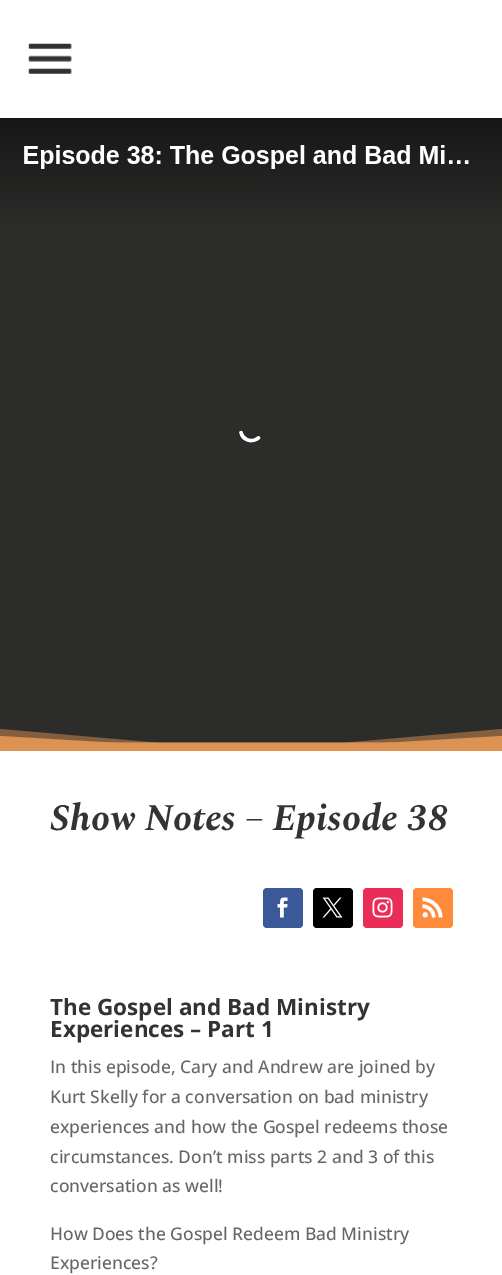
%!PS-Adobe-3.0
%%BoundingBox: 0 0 502 1275
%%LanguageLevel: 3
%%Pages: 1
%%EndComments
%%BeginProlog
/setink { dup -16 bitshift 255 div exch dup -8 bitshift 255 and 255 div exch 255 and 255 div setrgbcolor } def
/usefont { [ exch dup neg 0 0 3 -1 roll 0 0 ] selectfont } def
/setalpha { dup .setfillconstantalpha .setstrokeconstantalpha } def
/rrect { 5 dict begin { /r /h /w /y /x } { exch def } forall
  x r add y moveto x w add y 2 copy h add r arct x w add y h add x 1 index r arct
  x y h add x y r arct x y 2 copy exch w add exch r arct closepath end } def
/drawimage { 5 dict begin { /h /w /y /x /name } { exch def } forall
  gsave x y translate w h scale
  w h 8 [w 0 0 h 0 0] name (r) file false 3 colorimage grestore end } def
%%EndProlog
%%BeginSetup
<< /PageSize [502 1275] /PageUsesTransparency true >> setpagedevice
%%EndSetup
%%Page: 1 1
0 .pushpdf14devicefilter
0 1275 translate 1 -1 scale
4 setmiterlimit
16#FFFFFF setink
0 0 502 1275 rectfill
(img1.raw) 28 43 44 31 drawimage
16#DB9252 setink
101 742 301 9 rectfill
(img2.raw) 0 118 502 625 drawimage
0.5 setalpha
251 751 moveto 0 729 lineto 0 751 lineto 502 751 lineto 502 729 lineto closepath fill
1 setalpha
251 751 moveto 0 736 lineto 0 751 lineto 502 751 lineto 502 736 lineto closepath fill
/Spectral-BoldItalic 37.5 usefont
16#333333 setink
50 830 moveto (Show Notes – Episode 38) show
16#3B5998 setink
263 888 40 40 4 rrect fill
(img3.raw) 277 897 11 21 drawimage
16#000000 setink
313 888 40 40 4 rrect fill
(img4.raw) 322 897 21 21 drawimage
16#EA2C59 setink
363 888 40 40 4 rrect fill
(img5.raw) 372 897 21 21 drawimage
16#FF8A3C setink
413 888 40 40 4 rrect fill
(img6.raw) 422 897 21 21 drawimage
/OpenSans-Bold 22.5 usefont
16#333333 setink
50 1015 moveto (The Gospel and Bad Ministry) show
50 1037 moveto (Experiences – Part 1) show
/OpenSans-Medium 17.5 usefont
16#666666 setink
[
    [(In this episode, Cary and Andrew are joined by) 50 1073]
    [(Kurt Skelly for a conversation on bad ministry) 50 1103]
    [(experiences and how the Gospel redeems those) 50 1133]
    [(circumstances. Don’t miss parts 2 and 3 of this) 50 1163]
    [(conversation as well!) 50 1192]
    [(How Does the Gospel Redeem Bad Ministry) 50 1240]
    [(Experiences?) 50 1269]
] { aload pop moveto show } forall
.poppdf14devicefilter showpage
%%EOF
